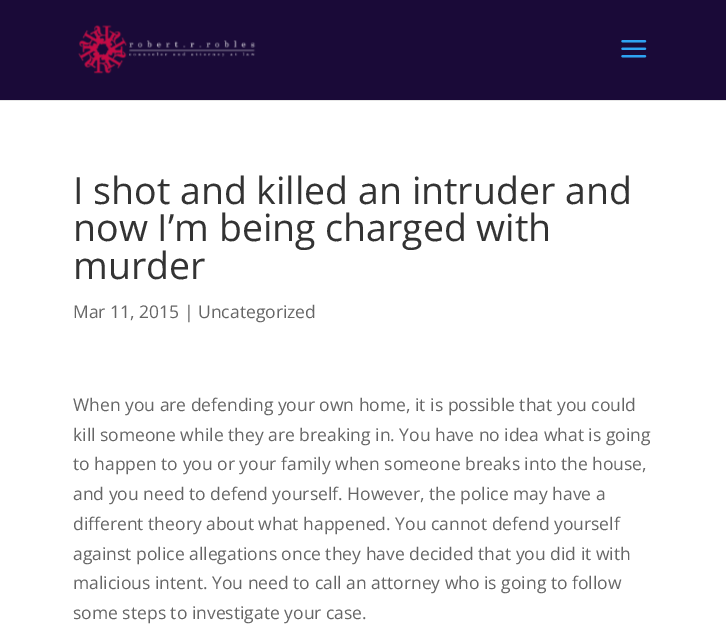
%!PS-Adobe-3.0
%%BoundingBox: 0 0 726 641
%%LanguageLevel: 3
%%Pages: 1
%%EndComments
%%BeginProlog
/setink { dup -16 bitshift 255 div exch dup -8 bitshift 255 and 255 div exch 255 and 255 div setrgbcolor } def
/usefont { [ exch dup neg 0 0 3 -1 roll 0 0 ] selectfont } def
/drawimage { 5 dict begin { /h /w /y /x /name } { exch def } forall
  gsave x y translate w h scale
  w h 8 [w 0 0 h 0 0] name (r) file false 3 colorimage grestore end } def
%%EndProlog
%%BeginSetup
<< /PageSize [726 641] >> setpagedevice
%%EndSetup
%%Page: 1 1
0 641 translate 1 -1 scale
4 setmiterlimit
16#FFFFFF setink
0 0 726 641 rectfill
16#E6E6E6 setink
0 100 726 1 rectfill
16#1A0A38 setink
0 0 726 100 rectfill
(img1.raw) 78 25 178 49 drawimage
(img2.raw) 621 40 26 18 drawimage
/OpenSans-Regular 37.5 usefont
16#333333 setink
[
    [(I shot and killed an intruder and) 73 204]
    [(now I’m being charged with) 73 241]
    [(murder) 73 279]
] { aload pop moveto show } forall
/OpenSans-Regular 17.5 usefont
16#666666 setink
[
    [(Mar 11, 2015 | Uncategorized) 73 318]
    [(When you are defending your own home, it is possible that you could) 73 411]
    [(kill someone while they are breaking in. You have no idea what is going) 73 441]
    [(to happen to you or your family when someone breaks into the house,) 73 470]
    [(and you need to defend yourself. However, the police may have a) 73 500]
    [(different theory about what happened. You cannot defend yourself) 73 530]
    [(against police allegations once they have decided that you did it with) 73 560]
    [(malicious intent. You need to call an attorney who is going to follow) 73 589]
    [(some steps to investigate your case.) 73 619]
] { aload pop moveto show } forall
showpage
%%EOF
